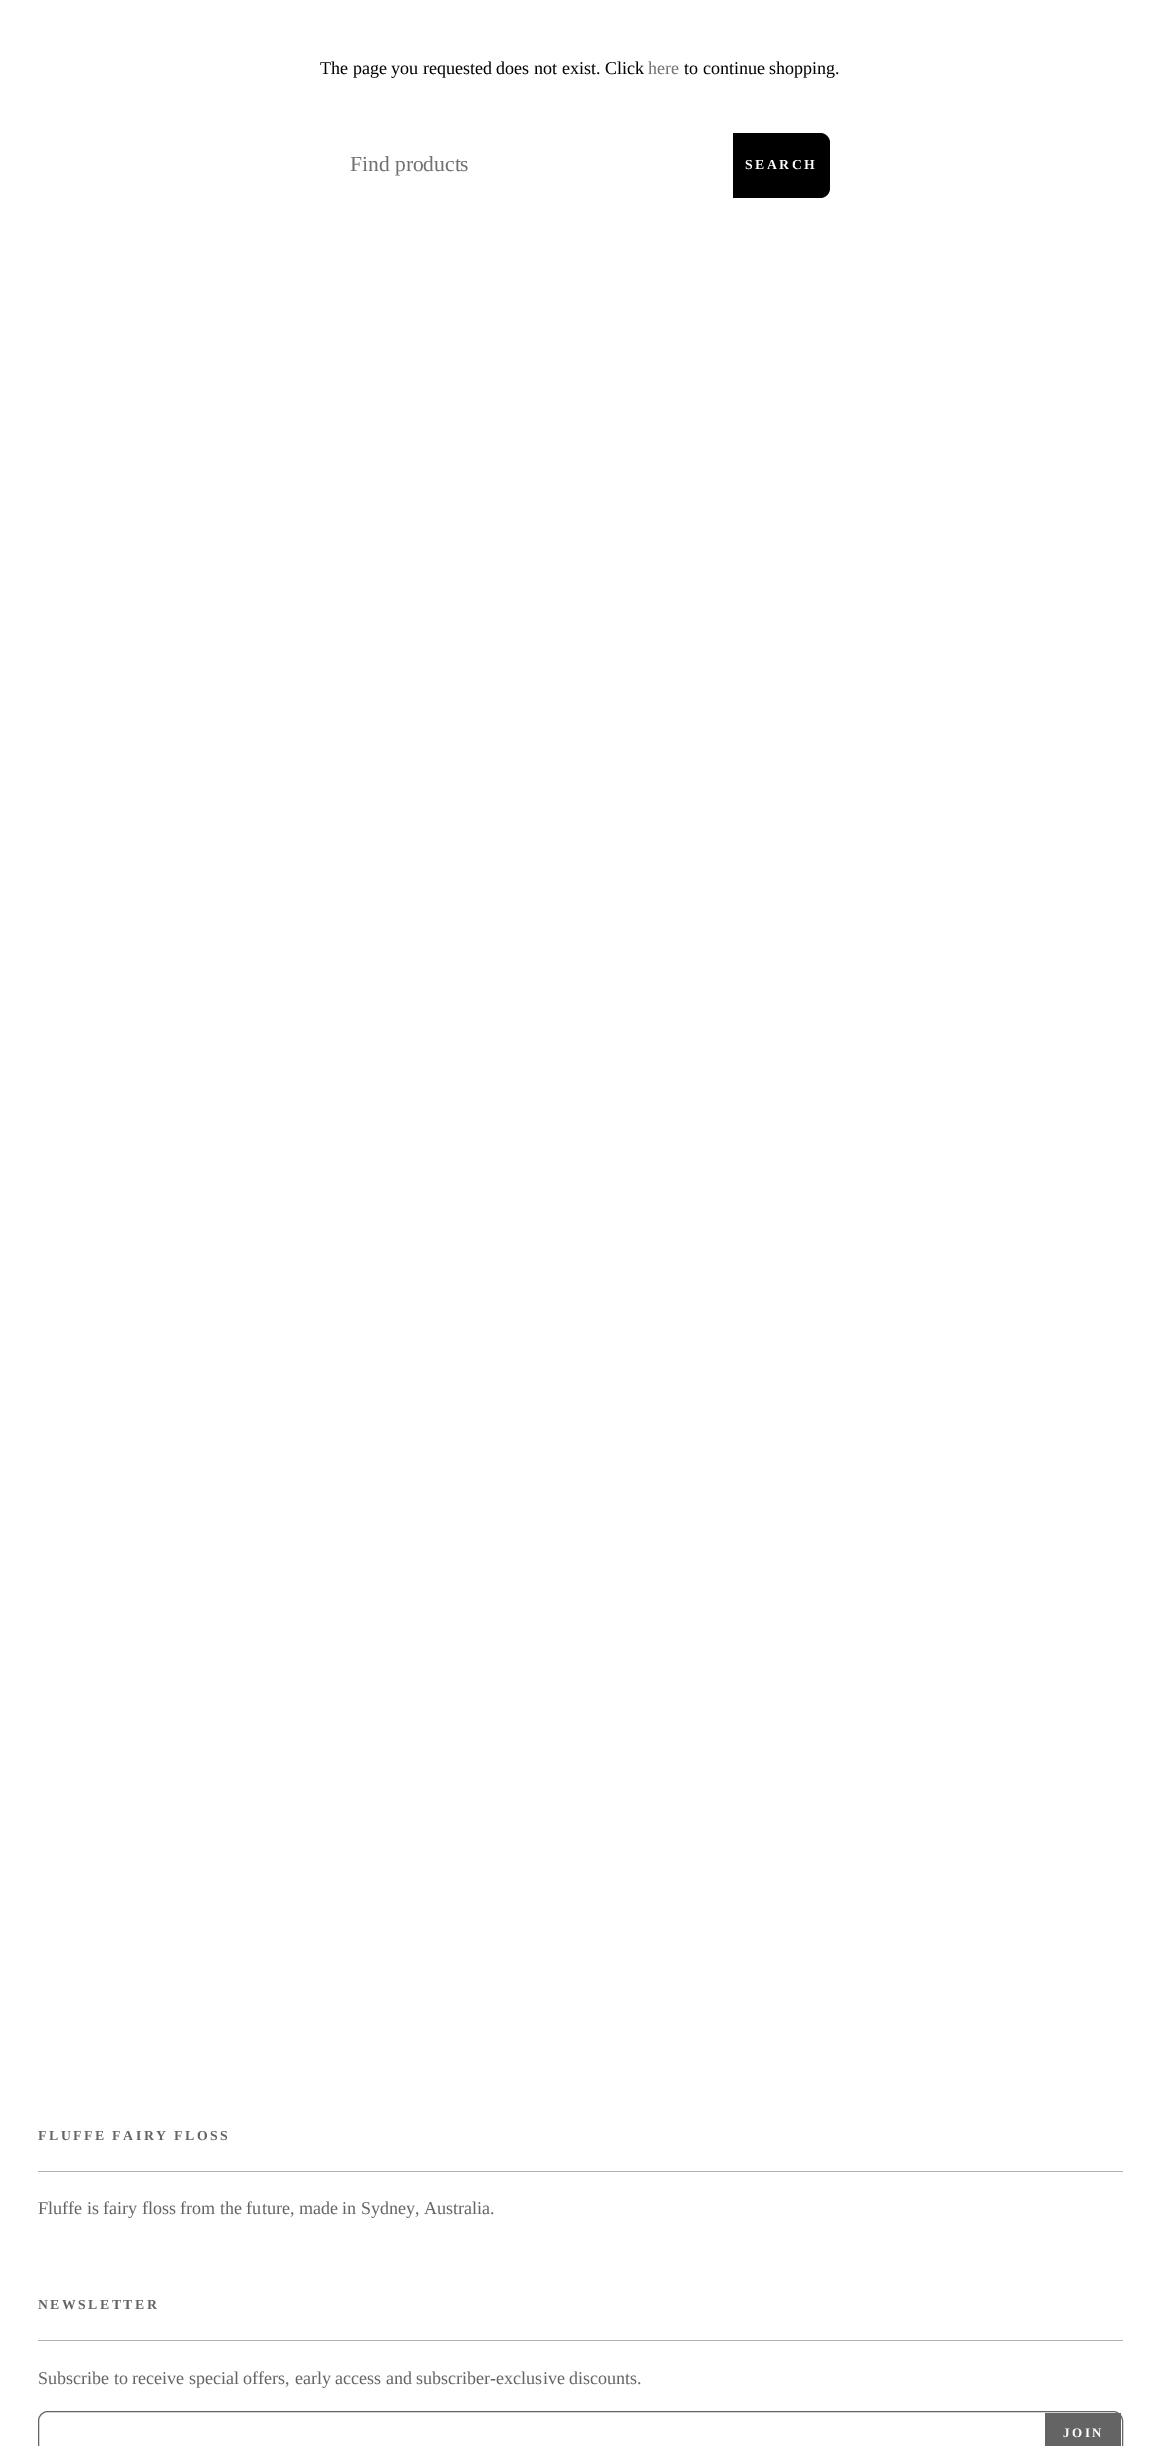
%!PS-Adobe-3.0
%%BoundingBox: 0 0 1159 2446
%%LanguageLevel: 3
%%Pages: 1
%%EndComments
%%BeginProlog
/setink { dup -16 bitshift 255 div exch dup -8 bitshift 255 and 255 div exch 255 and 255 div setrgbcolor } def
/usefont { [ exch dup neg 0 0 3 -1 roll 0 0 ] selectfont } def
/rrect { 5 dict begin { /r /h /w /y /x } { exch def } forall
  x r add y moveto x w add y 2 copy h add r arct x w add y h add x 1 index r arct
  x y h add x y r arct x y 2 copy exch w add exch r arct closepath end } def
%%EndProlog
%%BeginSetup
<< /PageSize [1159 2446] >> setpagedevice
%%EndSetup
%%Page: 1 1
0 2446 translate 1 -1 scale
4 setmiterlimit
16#FFFFFF setink
0 0 1159 2446 rectfill
/LiberationSerif-Regular 18.05 usefont
16#000000 setink
320 74 moveto (The page you requested does not exist. Click) show
16#717171 setink
648 74 moveto (here) show
16#000000 setink
684 74 moveto (to continue shopping.) show
/LiberationSerif-Regular 21.5 usefont
16#717171 setink
350 171 moveto (Find products) show
16#000000 setink
733 133 moveto 820 133 lineto 825.5 133 830 137.5 830 143 curveto 830 188 lineto 830 193.5 825.5 198 820 198 curveto 733 198 lineto closepath fill
/LiberationSerif-Bold 13.75 usefont
16#FFFFFF setink
745 169 moveto 2.5 0 (SEARCH) ashow
16#646464 setink
38 2140 moveto 2.5 0 (FLUFFE FAIRY FLOSS) ashow
16#B2B2B2 setink
38 2171 1085 1 rectfill
/LiberationSerif-Regular 18.05 usefont
16#646464 setink
38 2214 moveto (Fluffe is fairy floss from the future, made in Sydney, Australia.) show
/LiberationSerif-Bold 13.75 usefont
38 2309 moveto 2.5 0 (NEWSLETTER) ashow
16#B2B2B2 setink
38 2340 1085 1 rectfill
/LiberationSerif-Regular 18.05 usefont
16#646464 setink
38 2384 moveto (Subscribe to receive special offers, early access and subscriber-exclusive discounts.) show
38.5 2411.5 1084 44 9.5 rrect stroke
1045 2413 76 33 rectfill
/LiberationSerif-Bold 13 usefont
16#FFFFFF setink
1063 2437 moveto 2.5 0 (JOIN) ashow
showpage
%%EOF
